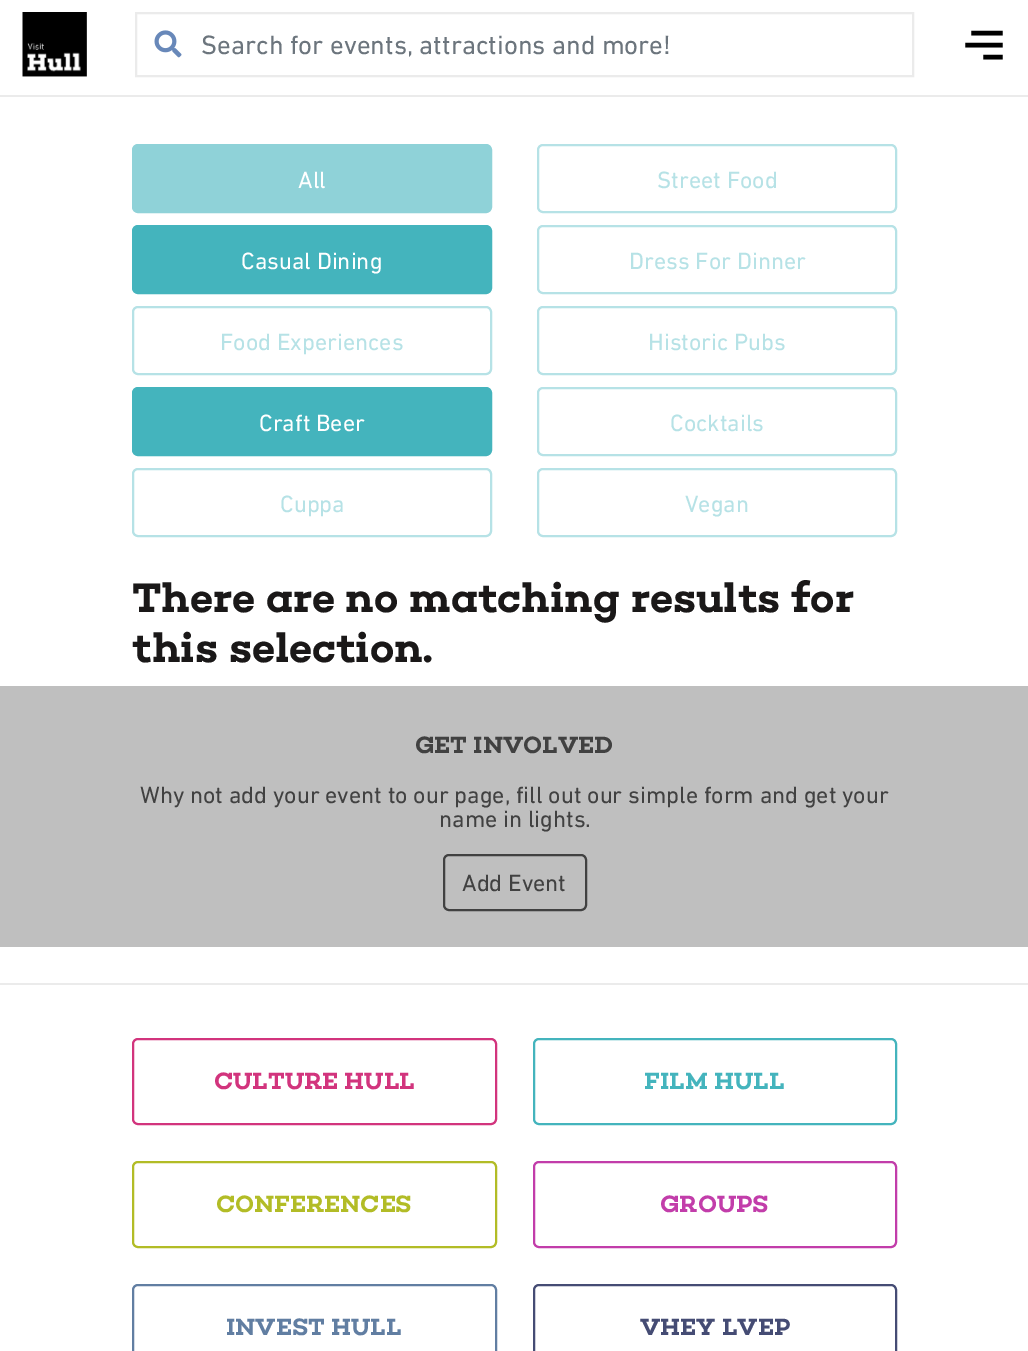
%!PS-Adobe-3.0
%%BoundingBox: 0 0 1028 1351
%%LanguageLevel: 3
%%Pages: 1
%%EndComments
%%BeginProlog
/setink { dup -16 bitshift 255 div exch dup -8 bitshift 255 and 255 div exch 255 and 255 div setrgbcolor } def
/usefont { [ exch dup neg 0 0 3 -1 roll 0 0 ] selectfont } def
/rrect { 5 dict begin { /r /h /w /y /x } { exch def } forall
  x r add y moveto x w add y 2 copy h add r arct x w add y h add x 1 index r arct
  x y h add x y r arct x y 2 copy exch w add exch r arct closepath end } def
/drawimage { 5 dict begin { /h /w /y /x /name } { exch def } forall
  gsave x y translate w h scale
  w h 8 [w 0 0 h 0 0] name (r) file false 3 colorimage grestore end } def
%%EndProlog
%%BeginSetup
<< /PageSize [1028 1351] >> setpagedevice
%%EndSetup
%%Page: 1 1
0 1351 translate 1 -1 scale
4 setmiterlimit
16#FFFFFF setink
0 0 1028 1351 rectfill
16#EBEBEB setink
0 95 1028 2 rectfill
(img1.raw) 22 12 65 65 drawimage
2 setlinewidth
136 13 777 63 rectstroke
(img2.raw) 154 30 28 28 drawimage
/DINNext-Regular 27 usefont
16#6C757D setink
201 54 moveto (Search for events, attractions and more!) show
16#000000 setink
4.5 setlinewidth
2 setlinecap
1000.5 33 moveto 973.5 33 lineto 1000.5 45 moveto 967.5 45 lineto 1000.5 57 moveto 985.5 57 lineto stroke
16#8FD2D8 setink
133 145 358 67 5 rrect gsave fill grestore
2 setlinewidth
0 setlinecap
stroke
/DINNext-Regular 24 usefont
16#FFFFFF setink
298 188 moveto (All) show
16#B6E2E6 setink
538 145 358 67 5 rrect stroke
657 188 moveto (Street Food) show
16#44B4BD setink
133 226 358 67 5 rrect gsave fill grestore
stroke
16#FFFFFF setink
241 269 moveto (Casual Dining) show
16#B6E2E6 setink
538 226 358 67 5 rrect stroke
629 269 moveto (Dress For Dinner) show
133 307 358 67 5 rrect stroke
220 350 moveto (Food Experiences) show
538 307 358 67 5 rrect stroke
648 350 moveto (Historic Pubs) show
16#44B4BD setink
133 388 358 67 5 rrect gsave fill grestore
stroke
16#FFFFFF setink
259 431 moveto (Craft Beer) show
16#B6E2E6 setink
538 388 358 67 5 rrect stroke
670 431 moveto (Cocktails) show
133 469 358 67 5 rrect stroke
280 512 moveto (Cuppa) show
538 469 358 67 5 rrect stroke
685 512 moveto (Vegan) show
/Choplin-SemiBold 42 usefont
16#1A1818 setink
132 612 moveto (There are no matching results for) show
132 662 moveto (this selection.) show
16#BFBFBF setink
0 686 1028 261 rectfill
/Choplin-SemiBold 24 usefont
16#414141 setink
415 753 moveto (GET INVOLVED) show
/DINNext-Regular 24 usefont
140 803 moveto (Why not add your event to our page, fill out our simple form and get your) show
439 827 moveto (name in lights.) show
444 855 142 55 5 rrect stroke
462 891 moveto (Add Event) show
16#EBEBEB setink
0 983 1028 2 rectfill
16#D2347D setink
133 1039 363 85 5 rrect stroke
/Choplin-SemiBold 24 usefont
214 1089 moveto (CULTURE HULL) show
16#44B4BD setink
534 1039 362 85 5 rrect stroke
644 1089 moveto (FILM HULL) show
16#B2BC26 setink
133 1162 363 85 5 rrect stroke
216 1212 moveto (CONFERENCES) show
16#C23DAA setink
534 1162 362 85 5 rrect stroke
660 1212 moveto (GROUPS) show
16#617EA2 setink
133 1285 363 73 5 rrect stroke
226 1335 moveto (INVEST HULL) show
16#454C74 setink
534 1285 362 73 5 rrect stroke
640 1335 moveto (VHEY LVEP) show
showpage
%%EOF
